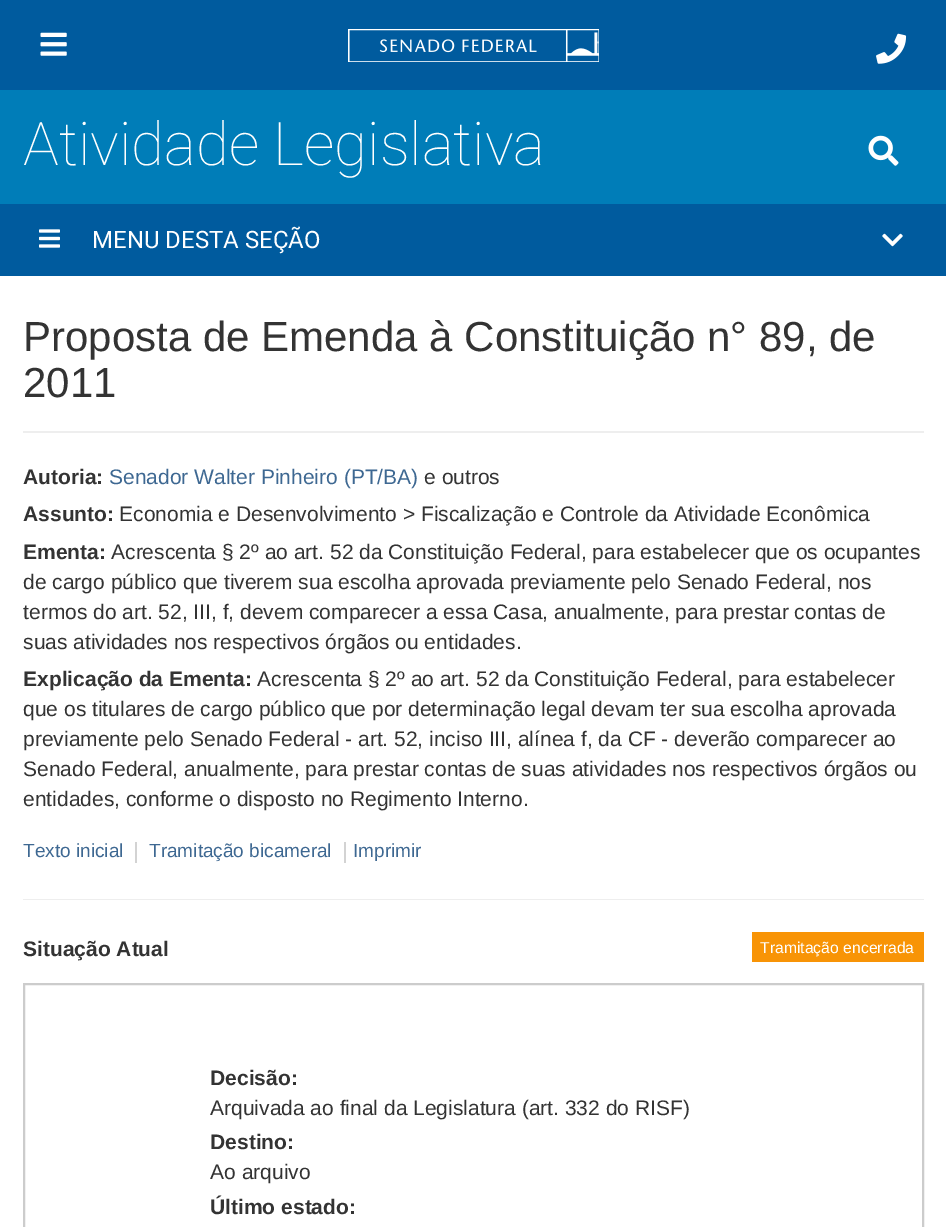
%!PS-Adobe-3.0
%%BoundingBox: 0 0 946 1227
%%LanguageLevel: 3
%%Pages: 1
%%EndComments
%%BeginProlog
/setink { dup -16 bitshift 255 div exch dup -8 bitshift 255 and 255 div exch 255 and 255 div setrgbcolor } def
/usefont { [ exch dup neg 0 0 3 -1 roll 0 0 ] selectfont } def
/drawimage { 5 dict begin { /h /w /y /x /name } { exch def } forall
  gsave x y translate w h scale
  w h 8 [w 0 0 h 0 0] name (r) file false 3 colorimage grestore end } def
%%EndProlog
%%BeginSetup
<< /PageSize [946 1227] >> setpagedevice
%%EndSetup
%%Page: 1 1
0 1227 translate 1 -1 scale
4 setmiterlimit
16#FFFFFF setink
0 0 946 1227 rectfill
16#005B9E setink
0 0 946 90 rectfill
(img1.raw) 40 32 27 24 drawimage
(img2.raw) 348 29 251 33 drawimage
(img3.raw) 876 33 31 31 drawimage
16#007DB8 setink
0 90 946 114 rectfill
/Roboto-Thin 60 usefont
16#FFFFFF setink
23 165 moveto (Atividade Legislativa) show
(img4.raw) 868 135 31 31 drawimage
16#005B9E setink
0 204 946 72 rectfill
(img5.raw) 39 229 21 19 drawimage
/Roboto-Regular 24 usefont
16#FFFFFF setink
92 248 moveto (MENU DESTA SEÇÃO) show
(img6.raw) 882 233 21 14 drawimage
16#EEEEEE setink
23 431 901 2 rectfill
/LiberationSans-Regular 42 usefont
16#333333 setink
23 351 moveto (Proposta de Emenda à Constituição n° 89, de) show
23 397 moveto (2011) show
/LiberationSans-Bold 21 usefont
23 484 moveto (Autoria:) show
/LiberationSans-Regular 21 usefont
16#3E6892 setink
109 484 moveto (Senador Walter Pinheiro \(PT/BA\)) show
16#333333 setink
424 484 moveto (e outros) show
/LiberationSans-Bold 21 usefont
23 521 moveto (Assunto:) show
/LiberationSans-Regular 21 usefont
119 521 moveto (Economia e Desenvolvimento > Fiscalização e Controle da Atividade Econômica) show
/LiberationSans-Bold 21 usefont
23 559 moveto (Ementa:) show
/LiberationSans-Regular 21 usefont
[
    [(Acrescenta § 2º ao art. 52 da Constituição Federal, para estabelecer que os ocupantes) 111 559]
    [(de cargo público que tiverem sua escolha aprovada previamente pelo Senado Federal, nos) 23 589]
    [(termos do art. 52, III, f, devem comparecer a essa Casa, anualmente, para prestar contas de) 23 619]
    [(suas atividades nos respectivos órgãos ou entidades.) 23 649]
] { aload pop moveto show } forall
/LiberationSans-Bold 21 usefont
23 686 moveto (Explicação da Ementa:) show
/LiberationSans-Regular 21 usefont
[
    [(Acrescenta § 2º ao art. 52 da Constituição Federal, para estabelecer) 257 686]
    [(que os titulares de cargo público que por determinação legal devam ter sua escolha aprovada) 23 716]
    [(previamente pelo Senado Federal - art. 52, inciso III, alínea f, da CF - deverão comparecer ao) 23 746]
    [(Senado Federal, anualmente, para prestar contas de suas atividades nos respectivos órgãos ou) 23 776]
    [(entidades, conforme o disposto no Regimento Interno.) 23 806]
] { aload pop moveto show } forall
/LiberationSans-Regular 19 usefont
16#3E6892 setink
23 857 moveto (Texto inicial) show
16#D3D3D3 setink
135 842 2 21 rectfill
16#3E6892 setink
149 857 moveto (Tramitação bicameral) show
16#D3D3D3 setink
344 842 2 21 rectfill
16#3E6892 setink
353 857 moveto (Imprimir) show
16#EEEEEE setink
23 899 901 1 rectfill
/LiberationSans-Bold 21 usefont
16#333333 setink
23 956 moveto (Situação Atual) show
16#F89406 setink
752 932 172 30 rectfill
/LiberationSans-Regular 15.75 usefont
16#FFFFFF setink
760 953 moveto (Tramitação encerrada) show
16#CCCCCC setink
2 setlinewidth
24 984 899 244 rectstroke
/LiberationSans-Bold 21 usefont
16#333333 setink
210 1085 moveto (Decisão:) show
/LiberationSans-Regular 21 usefont
210 1115 moveto (Arquivada ao final da Legislatura \(art. 332 do RISF\)) show
/LiberationSans-Bold 21 usefont
210 1149 moveto (Destino:) show
/LiberationSans-Regular 21 usefont
210 1179 moveto (Ao arquivo) show
/LiberationSans-Bold 21 usefont
210 1214 moveto (Último estado:) show
showpage
%%EOF
